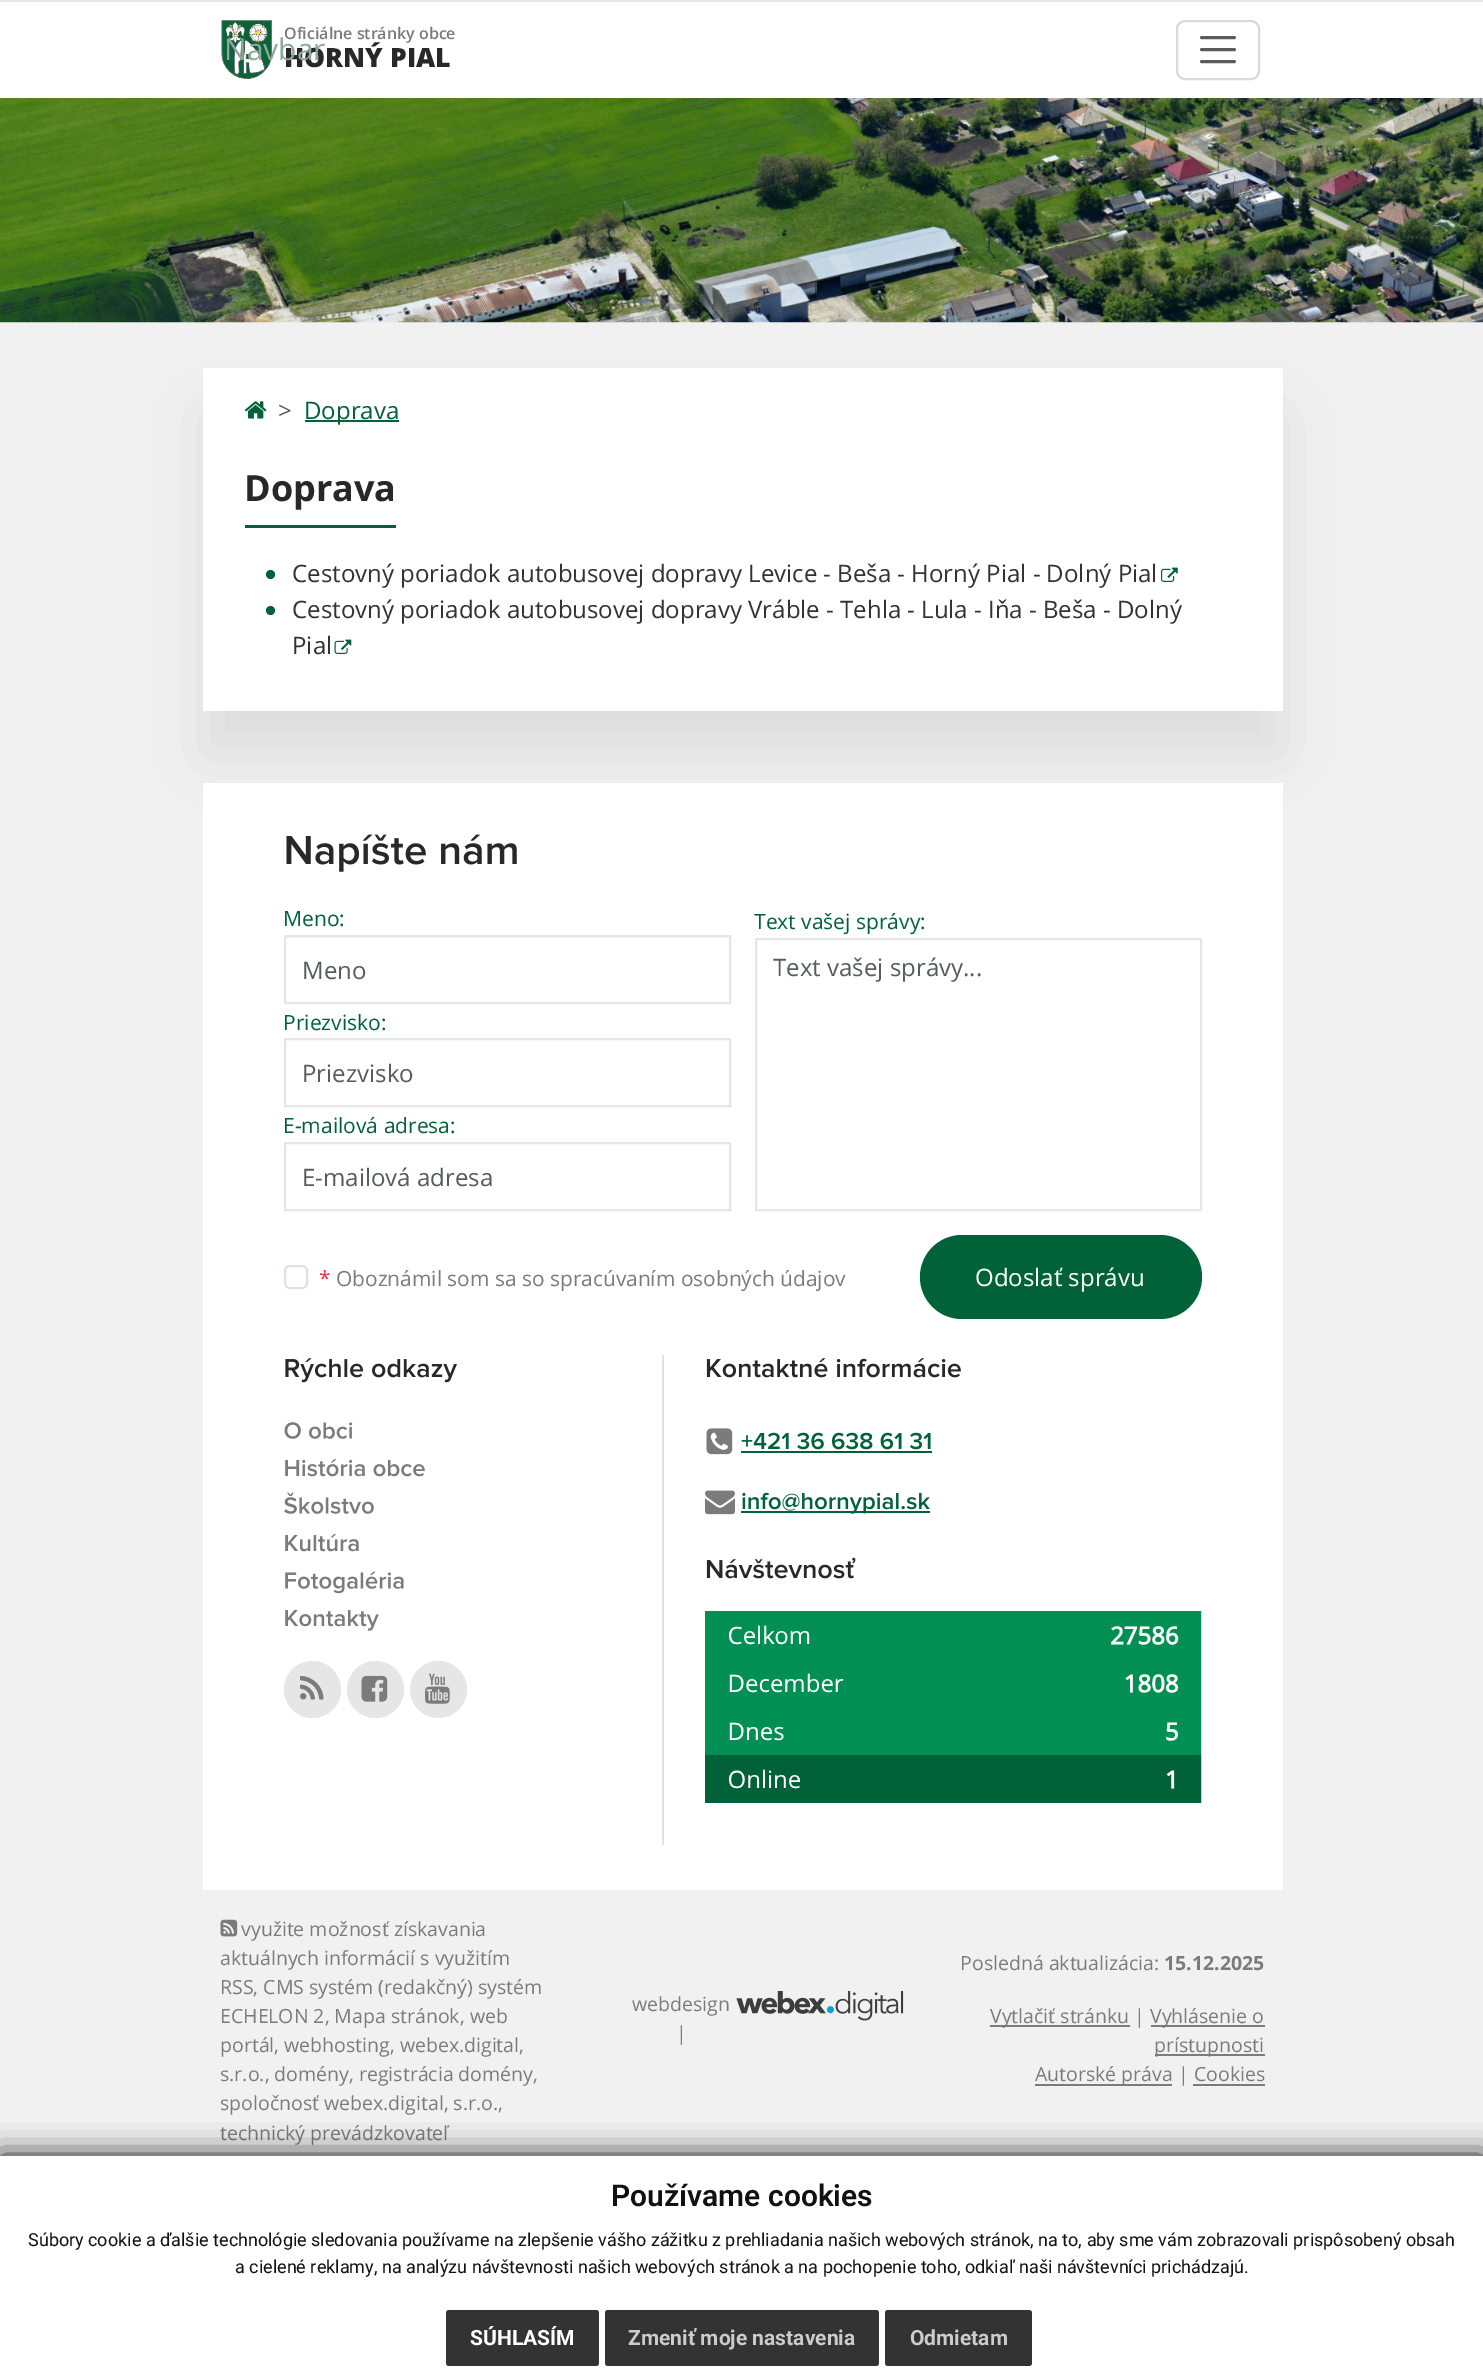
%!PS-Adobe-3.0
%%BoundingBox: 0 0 1483 2378
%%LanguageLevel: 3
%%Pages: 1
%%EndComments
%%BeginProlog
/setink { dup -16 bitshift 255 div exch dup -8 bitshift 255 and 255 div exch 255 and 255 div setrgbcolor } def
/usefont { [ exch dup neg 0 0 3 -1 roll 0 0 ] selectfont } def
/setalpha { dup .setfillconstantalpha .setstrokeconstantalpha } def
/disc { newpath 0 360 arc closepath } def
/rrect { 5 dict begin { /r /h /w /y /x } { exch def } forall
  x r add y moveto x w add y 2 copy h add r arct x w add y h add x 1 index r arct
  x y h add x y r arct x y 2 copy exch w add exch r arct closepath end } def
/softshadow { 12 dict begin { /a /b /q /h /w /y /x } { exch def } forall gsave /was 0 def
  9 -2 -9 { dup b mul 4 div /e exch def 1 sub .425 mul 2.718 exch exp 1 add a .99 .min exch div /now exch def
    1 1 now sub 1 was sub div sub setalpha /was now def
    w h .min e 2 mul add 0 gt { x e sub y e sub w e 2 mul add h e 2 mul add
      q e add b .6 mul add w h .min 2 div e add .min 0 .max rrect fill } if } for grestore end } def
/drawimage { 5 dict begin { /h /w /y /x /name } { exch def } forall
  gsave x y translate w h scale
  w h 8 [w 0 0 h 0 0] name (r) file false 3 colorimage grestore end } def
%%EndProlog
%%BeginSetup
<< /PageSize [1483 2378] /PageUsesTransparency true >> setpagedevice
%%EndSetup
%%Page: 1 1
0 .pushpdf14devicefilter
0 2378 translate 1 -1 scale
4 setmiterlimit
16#F1F1F1 setink
0 0 1483 2378 rectfill
16#FFFFFF setink
0 2 1483 96 rectfill
16#E6E6E6 setink
0 0 1483 2 rectfill
(img1.raw) 221 20 51 59 drawimage
/OpenSans-ExtraBold 26.5 usefont
16#282828 setink
284 67 moveto (HORNÝ PIAL) show
/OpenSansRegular-Regular 30 usefont
16#8EA99C setink
224 60 moveto (Navbar) show
16#D9D9D9 setink
2 setlinewidth
1177 21 82 58 8 rrect stroke
16#595C5F setink
3 setlinewidth
1 setlinecap
1201.5 37.5 moveto 1234.5 37.5 lineto 1201.5 49.5 moveto 1234.5 49.5 lineto 1201.5 61.5 moveto 1234.5 61.5 lineto stroke
/OpenSans-SemiBold 16 usefont
16#7B7B7B setink
284 39 moveto (Oficiálne stránky obce) show
(img2.raw) 0 98 1483 225 drawimage
16#000000 setink
203 413 1080 343 0 30 0.07 softshadow
16#FFFFFF setink
203 368 1080 343 rectfill
(img3.raw) 244 401 23 18 drawimage
/OpenSansRegular-Regular 24 usefont
16#595C5F setink
278 419 moveto (>) show
16#016239 setink
305 420 94 2 rectfill
304 419 moveto (Doprava) show
245 525 151 3 rectfill
/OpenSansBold-Bold 36 usefont
16#282828 setink
244 501 moveto (Doprava) show
16#016239 setink
270.5 574.5 4.5 disc fill
/OpenSansRegular-Regular 24 usefont
16#333333 setink
292 582 moveto (Cestovný poriadok autobusovej dopravy Levice - Beša - Horný Pial - Dolný Pial) show
(img4.raw) 1161 567 17 15 drawimage
16#016239 setink
270.5 610.5 4.5 disc fill
16#333333 setink
292 618 moveto (Cestovný poriadok autobusovej dopravy Vráble - Tehla - Lula - Iňa - Beša - Dolný) show
292 654 moveto (Pial) show
(img5.raw) 334 639 18 15 drawimage
16#FFFFFF setink
203 783 1080 1107 rectfill
(img6.raw) 286 834 231 38 drawimage
/OpenSansRegular-Regular 21 usefont
16#016239 setink
283 926 moveto (Meno:) show
16#E6E6E6 setink
2 setlinewidth
0 setlinecap
285 936 445 67 rectstroke
/OpenSansRegular-Regular 24 usefont
16#595C5F setink
302 979 moveto (Meno) show
/OpenSansRegular-Regular 21 usefont
16#016239 setink
283 1030 moveto (Priezvisko:) show
16#E6E6E6 setink
285 1039 445 67 rectstroke
/OpenSansRegular-Regular 24 usefont
16#595C5F setink
302 1082 moveto (Priezvisko) show
/OpenSansRegular-Regular 21 usefont
16#016239 setink
283 1133 moveto (E-mailová adresa:) show
16#E6E6E6 setink
285 1143 445 67 rectstroke
/OpenSansRegular-Regular 24 usefont
16#595C5F setink
302 1186 moveto (E-mailová adresa) show
/OpenSansRegular-Regular 21 usefont
16#016239 setink
754 929 moveto (Text vašej správy:) show
16#E6E6E6 setink
756 939 445 271 rectstroke
/OpenSansRegular-Regular 24 usefont
16#595C5F setink
773 976 moveto (Text vašej správy...) show
16#DEE2E6 setink
285 1266 22 22 5 rrect stroke
/OpenSansRegular-Regular 20.9 usefont
16#DC3545 setink
319 1286 moveto (*) show
16#7B7B7B setink
336 1286 moveto (Oboznámil som sa so spracúvaním osobných údajov) show
16#016239 setink
920 1235 282 84 42 rrect fill
/OpenSansRegular-Regular 24 usefont
16#FFFFFF setink
975 1286 moveto (Odoslať správu) show
16#DEE2E6 setink
662 1355 2 490 rectfill
(img7.raw) 285 1358 172 25 drawimage
(img8.raw) 284 1422 69 17 drawimage
(img9.raw) 285 1459 140 18 drawimage
(img10.raw) 284 1492 90 22 drawimage
(img11.raw) 285 1534 74 18 drawimage
(img12.raw) 285 1571 119 23 drawimage
(img13.raw) 285 1610 94 21 drawimage
16#E6E6E6 setink
312.5 1689.5 28.5 disc fill
(img14.raw) 300 1676 24 24 drawimage
375.5 1689.5 28.5 disc fill
(img15.raw) 361 1675 27 27 drawimage
438.5 1689.5 28.5 disc fill
(img16.raw) 425 1673 25 31 drawimage
(img17.raw) 706 1358 255 20 drawimage
(img18.raw) 706 1428 27 27 drawimage
(img19.raw) 741 1432 190 18 drawimage
16#016239 setink
741 1451 191 2 rectfill
(img20.raw) 705 1490 30 25 drawimage
741 1511 189 2 rectfill
(img21.raw) 742 1492 188 22 drawimage
(img22.raw) 706 1557 150 22 drawimage
(img23.raw) 705 1611 497 192 drawimage
(img24.raw) 220 1919 18 18 drawimage
/OpenSansRegular-Regular 19.5 usefont
16#7B7B7B setink
[
    [(využite možnosť získavania) 241 1936]
    [(aktuálnych informácií s využitím) 220 1965]
    [(RSS, CMS systém \(redakčný\) systém) 220 1994]
    [(ECHELON 2, Mapa stránok, web) 220 2023]
    [(portál, webhosting, webex.digital,) 220 2052]
    [(s.r.o., domény, registrácia domény,) 220 2081]
    [(spoločnosť webex.digital, s.r.o.,) 220 2110]
    [(technický prevádzkovateľ) 220 2140]
    [(webdesign) 632 2011]
    [(|) 676 2040]
] { aload pop moveto show } forall
(img25.raw) 736 1991 168 30 drawimage
960 1970 moveto (Posledná aktualizácia:) show
/OpenSansBold-Bold 19.5 usefont
1164 1970 moveto (15.12.2025) show
990 2025 140 2 rectfill
/OpenSansRegular-Regular 19.5 usefont
990 2023 moveto (Vytlačiť stránku |) show
1151 2025 114 2 rectfill
1150 2023 moveto (Vyhlásenie o) show
1155 2054 110 2 rectfill
1154 2052 moveto (prístupnosti) show
1035 2084 137 2 rectfill
1035 2081 moveto (Autorské práva | Cookies) show
1193 2084 72 2 rectfill
16#111111 setink
0 2156 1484 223 0 15 1 softshadow
16#FFFFFF setink
0 2156 1483 222 rectfill
/Roboto-SemiBold 30 usefont
16#111111 setink
611 2206 moveto (Používame cookies) show
/Roboto-Regular 18 usefont
28 2246 moveto (Súbory cookie a ďalšie technológie sledovania používame na zlepšenie vášho zážitku z prehliadania našich webových stránok, na to, aby sme vám zobrazovali prispôsobený obsah) show
235 2273 moveto (a cielené reklamy, na analýzu návštevnosti našich webových stránok a na pochopenie toho, odkiaľ naši návštevníci prichádzajú.) show
16#333333 setink
446 2310 153 56 3 rrect fill
/Roboto-Bold 21 usefont
16#FFFFFF setink
470 2345 moveto (SÚHLASÍM) show
16#333333 setink
605 2310 274 56 3 rrect fill
16#CCCCCC setink
628 2345 moveto (Zmeniť moje nastavenia) show
16#333333 setink
885 2310 147 56 3 rrect fill
16#CCCCCC setink
910 2345 moveto (Odmietam) show
.poppdf14devicefilter showpage
%%EOF
